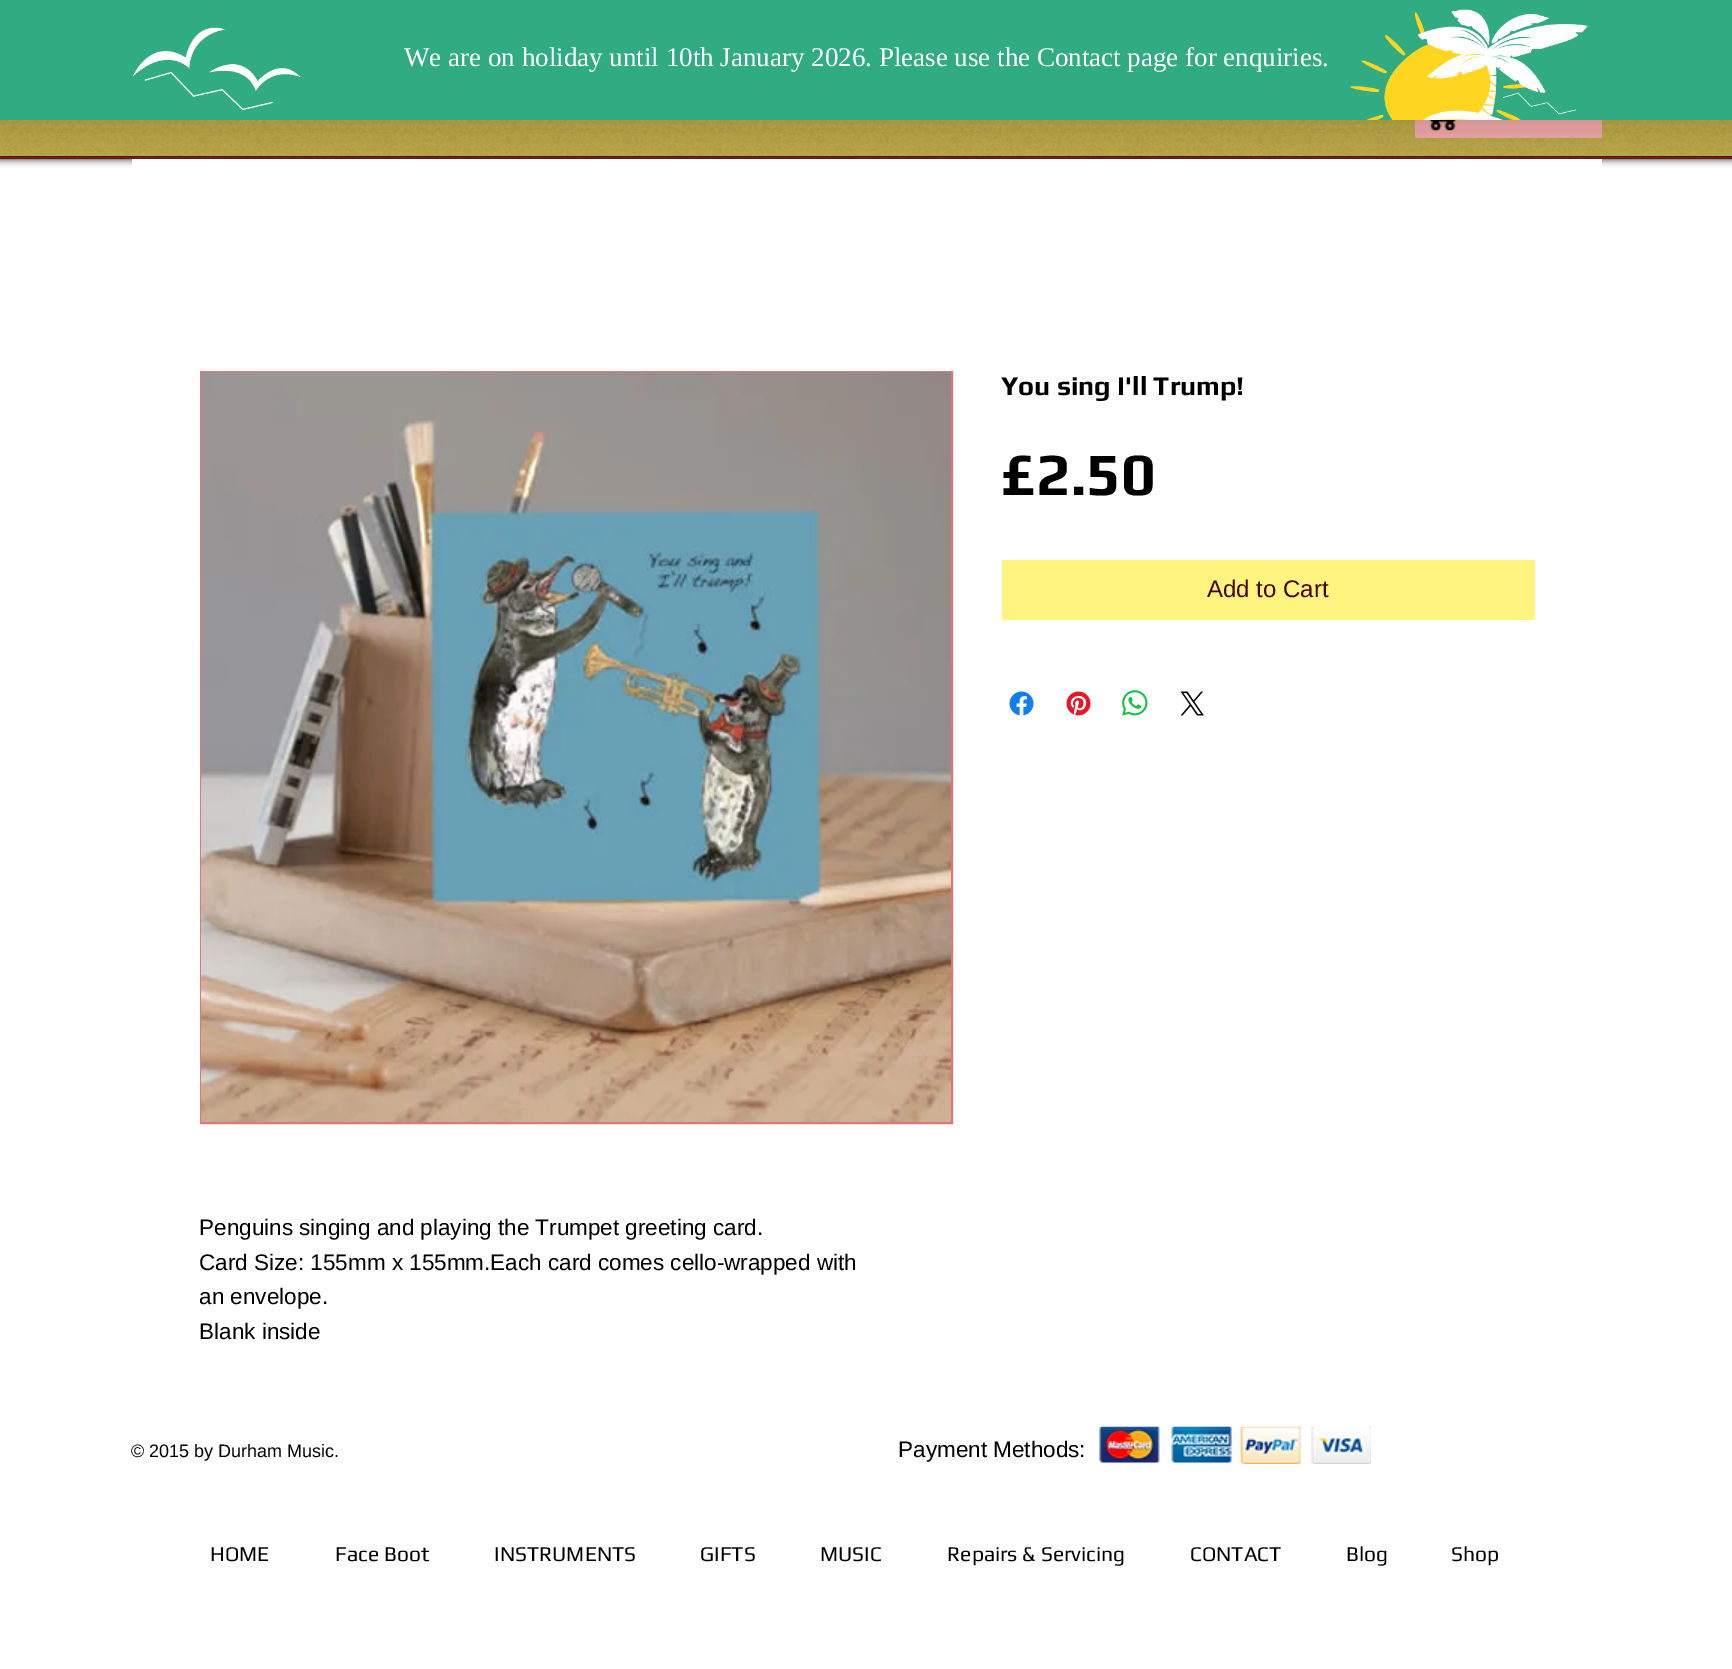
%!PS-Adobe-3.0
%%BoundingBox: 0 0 1732 1669
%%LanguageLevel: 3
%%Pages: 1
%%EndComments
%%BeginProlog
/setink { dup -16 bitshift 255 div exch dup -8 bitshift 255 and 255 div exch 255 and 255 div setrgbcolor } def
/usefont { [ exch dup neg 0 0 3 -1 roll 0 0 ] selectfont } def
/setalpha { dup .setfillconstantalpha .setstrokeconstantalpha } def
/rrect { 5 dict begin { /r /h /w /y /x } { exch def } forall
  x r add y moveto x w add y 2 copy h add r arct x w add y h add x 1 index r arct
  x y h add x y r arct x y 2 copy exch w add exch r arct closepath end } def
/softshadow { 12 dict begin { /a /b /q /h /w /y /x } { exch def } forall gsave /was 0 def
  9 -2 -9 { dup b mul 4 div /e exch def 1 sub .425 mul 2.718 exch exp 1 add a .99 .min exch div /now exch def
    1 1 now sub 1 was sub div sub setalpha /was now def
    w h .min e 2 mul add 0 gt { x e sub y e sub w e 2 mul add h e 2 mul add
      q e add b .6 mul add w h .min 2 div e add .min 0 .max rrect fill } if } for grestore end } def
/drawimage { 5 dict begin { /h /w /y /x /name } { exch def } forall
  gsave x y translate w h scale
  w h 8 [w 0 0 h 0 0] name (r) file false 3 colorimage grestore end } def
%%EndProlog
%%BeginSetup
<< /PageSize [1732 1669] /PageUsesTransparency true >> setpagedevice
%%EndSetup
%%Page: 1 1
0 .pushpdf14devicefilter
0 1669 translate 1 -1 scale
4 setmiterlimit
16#FFFFFF setink
0 0 1732 1669 rectfill
16#000000 setink
0 -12 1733 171 0 4 0.7 softshadow
16#8B2323 setink
0 156 1732 3 rectfill
(img2.raw) 0 156 1732 3 drawimage
16#000000 setink
0 84 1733 72 0 4 0.7 softshadow
16#BBA946 setink
0 120 1732 36 rectfill
(img3.raw) 0 120 1732 36 drawimage
16#EDA5A6 setink
1415 120 187 18 rectfill
(img4.raw) 1429 120 28 11 drawimage
16#FFFFFF setink
132 159 1470 9 rectfill
16#000000 setink
-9 -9 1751 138 0 18 0.12 softshadow
16#31AB82 setink
0 0 1732 120 rectfill
(img1.raw) 132 9 1456 111 drawimage
/LiberationSerif-Regular 27 usefont
16#FFFFFF setink
404 66 moveto (We are on holiday until 10th January 2026. Please use the Contact page for enquiries.) show
/Play-Bold 27 usefont
16#000000 setink
1001 395 moveto (You sing I'll Trump!) show
/Play-Bold 60 usefont
1001 495 moveto (£2.50) show
16#FFF47F setink
1002 560 533 60 rectfill
/LiberationSans-Regular 24 usefont
16#440506 setink
1207 597 moveto (Add to Cart) show
(img5.raw) 1009 691 25 25 drawimage
(img6.raw) 1066 691 25 25 drawimage
(img7.raw) 1122 690 26 26 drawimage
(img8.raw) 1180 691 24 25 drawimage
16#DD7779 setink
2 setlinewidth
201 372 751 751 rectstroke
(img9.raw) 201 372 750 750 drawimage
/LiberationSans-Regular 22.5 usefont
16#000000 setink
199 1235 moveto (Penguins singing and playing the Trumpet greeting card.) show
199 1270 moveto (Card Size: 155mm x 155mm.Each card comes cello-wrapped with) show
gsave
200 1211 750 138 rectclip
199 1304 moveto (an envelope.) show
grestore
199 1339 moveto (Blank inside) show
/LiberationSans-Regular 18 usefont
131 1457 moveto (© 2015 by Durham Music.) show
/LiberationSans-Regular 22.5 usefont
898 1457 moveto (Payment Methods:) show
(img10.raw) 1099 1426 272 38 drawimage
/Play-Regular 21 usefont
[
    [(HOME) 210 1561]
    [(Face Boot) 335 1561]
    [(INSTRUMENTS) 494 1561]
    [(GIFTS) 700 1561]
    [(MUSIC) 820 1561]
    [(Repairs & Servicing) 947 1561]
    [(CONTACT) 1190 1561]
    [(Blog) 1346 1561]
    [(Shop) 1451 1561]
] { aload pop moveto show } forall
.poppdf14devicefilter showpage
%%EOF
